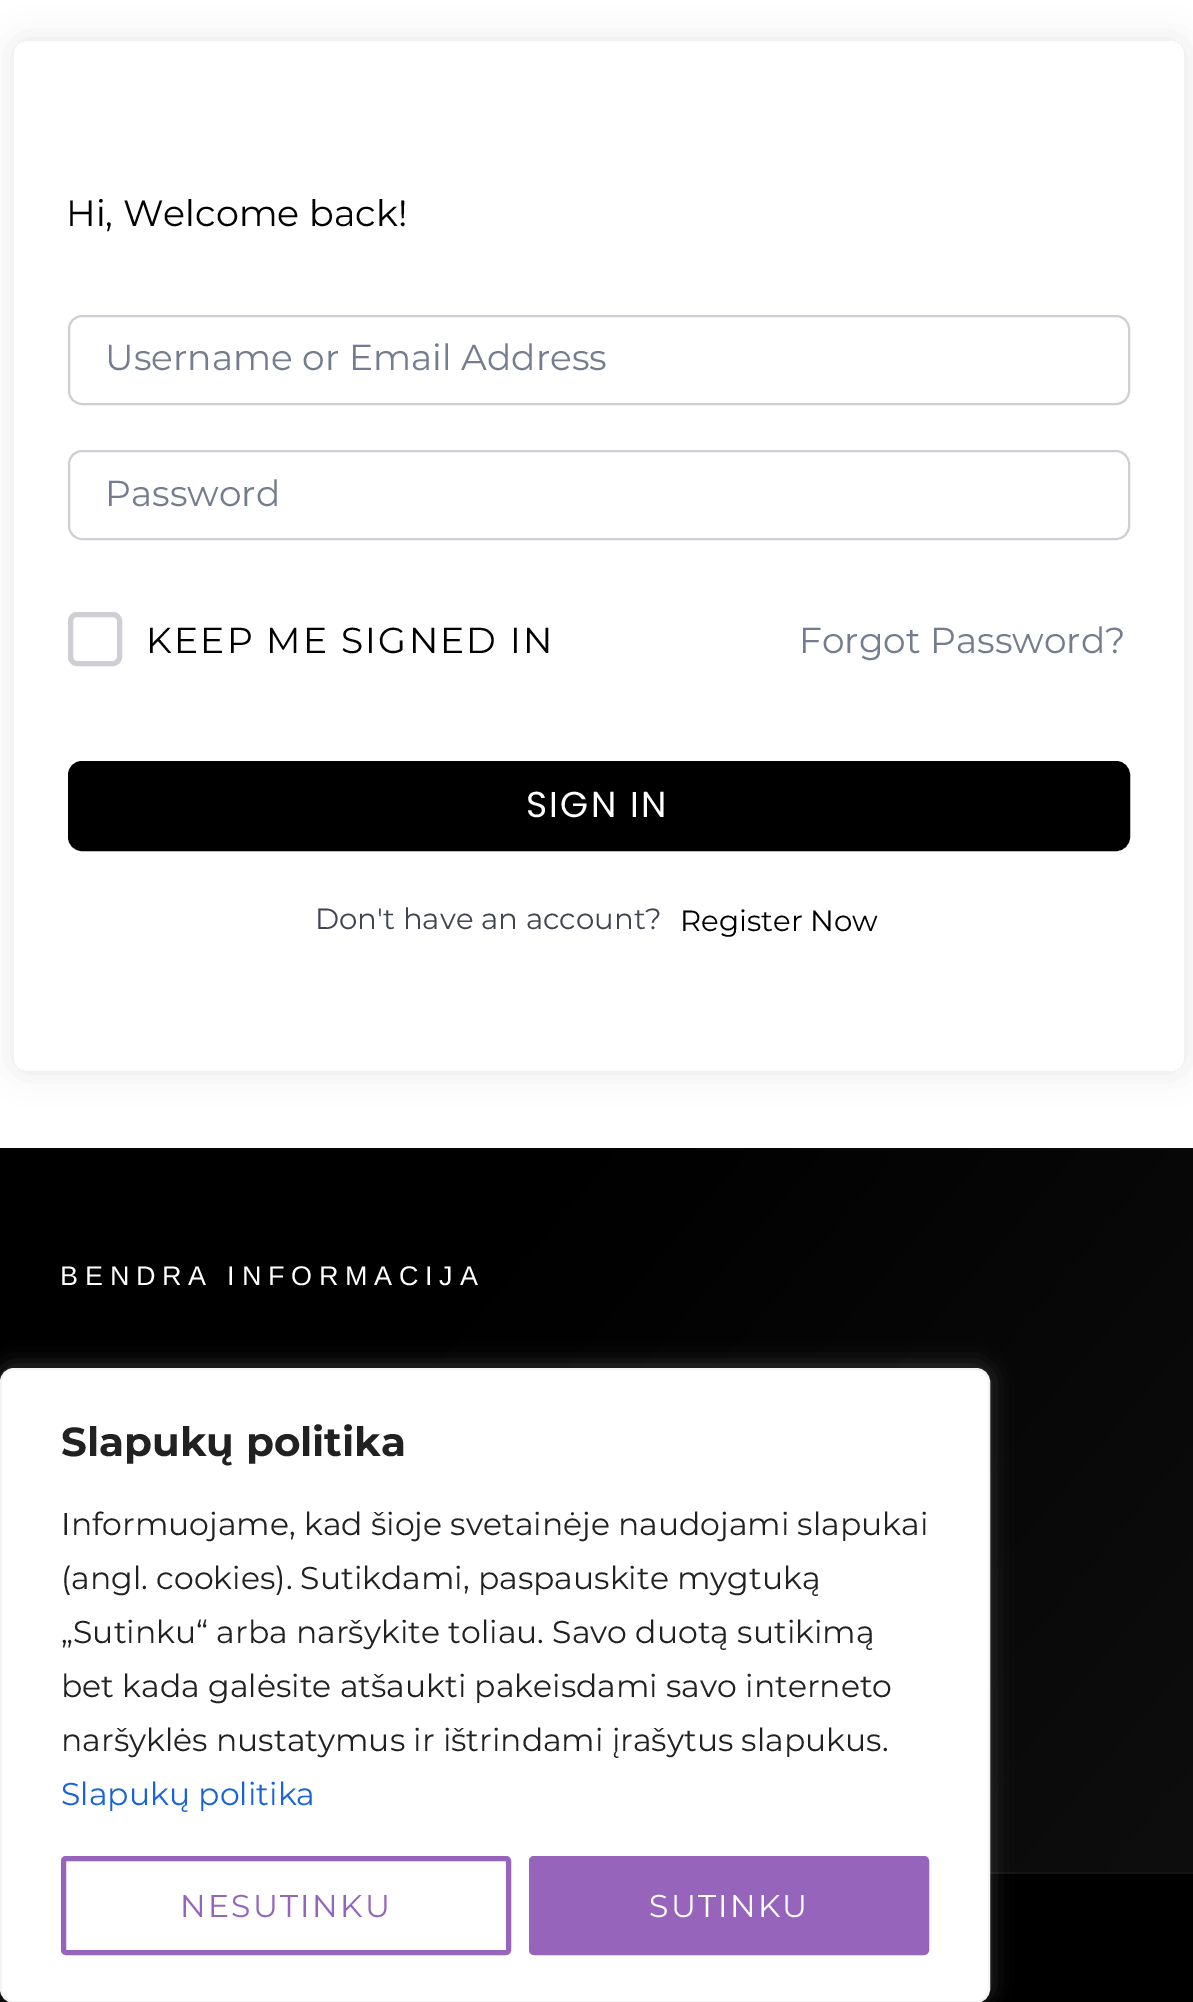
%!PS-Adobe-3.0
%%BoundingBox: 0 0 1193 2002
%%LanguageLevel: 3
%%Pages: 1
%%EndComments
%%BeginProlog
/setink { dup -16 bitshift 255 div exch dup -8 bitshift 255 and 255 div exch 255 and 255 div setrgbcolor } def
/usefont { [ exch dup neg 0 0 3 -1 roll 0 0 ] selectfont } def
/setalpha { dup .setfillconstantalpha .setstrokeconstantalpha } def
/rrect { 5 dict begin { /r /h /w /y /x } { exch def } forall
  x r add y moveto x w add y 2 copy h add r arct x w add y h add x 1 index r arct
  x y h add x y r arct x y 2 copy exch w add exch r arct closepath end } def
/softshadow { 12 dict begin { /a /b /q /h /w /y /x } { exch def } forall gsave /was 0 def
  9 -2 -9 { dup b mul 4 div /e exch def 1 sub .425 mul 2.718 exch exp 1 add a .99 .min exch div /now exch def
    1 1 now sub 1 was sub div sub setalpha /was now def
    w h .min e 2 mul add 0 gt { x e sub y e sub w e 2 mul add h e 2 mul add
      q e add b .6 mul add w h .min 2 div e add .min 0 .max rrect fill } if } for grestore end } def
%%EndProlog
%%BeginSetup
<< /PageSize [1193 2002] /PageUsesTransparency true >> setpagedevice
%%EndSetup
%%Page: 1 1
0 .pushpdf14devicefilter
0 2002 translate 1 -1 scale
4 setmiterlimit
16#FFFFFF setink
0 0 1193 2002 rectfill
gsave
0 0 moveto 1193 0 lineto 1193 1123 lineto 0 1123 lineto closepath 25 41 moveto 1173 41 lineto 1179 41 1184 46 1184 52 curveto 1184 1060 lineto 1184 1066 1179 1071 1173 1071 curveto 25 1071 lineto 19 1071 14 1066 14 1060 curveto 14 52 lineto 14 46 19 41 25 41 curveto closepath eoclip newpath
16#000000 setink
14 41 1170 1030 11 17 0.1 softshadow
grestore
/Montserrat-Regular 36.5 usefont
16#000000 setink
66 226 moveto (Hi, Welcome back!) show
16#CDCFD5 setink
2 setlinewidth
69 316 1060 88 13 rrect stroke
/Montserrat-Regular 36 usefont
16#757C8E setink
105 370 moveto (Username or Email Address) show
16#CDCFD5 setink
69 451 1060 88 13 rrect stroke
16#757C8E setink
105 506 moveto (Password) show
16#CDCFD5 setink
5 setlinewidth
70.5 614.5 49 49 6.5 rrect stroke
16#000000 setink
146 653 moveto 2.25 0 (KEEP ME SIGNED IN) ashow
16#757C8E setink
799 653 moveto (Forgot Password?) show
16#000000 setink
69 762 1060 88 13 rrect gsave fill grestore
2 setlinewidth
stroke
/Poppins-Regular 36 usefont
16#FFFFFF setink
526 817 moveto 2.25 0 (SIGN IN) ashow
/Montserrat-Regular 29.25 usefont
16#41454F setink
315 929 moveto (Don't have an account?) show
16#000000 setink
680 931 moveto (Register Now) show
gsave 0 1150 moveto 1193 1150 lineto 1193 1872 lineto 0 1872 lineto closepath clip newpath
<< /ShadingType 2 /ColorSpace /DeviceRGB /Coords [35 1106 1160 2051] /Extend [true true] /Function << /FunctionType 3 /Domain [0 1] /Functions [<< /FunctionType 2 /Domain [0 1] /C0 [0 0 0] /C1 [0 0 0] /N 1 >> << /FunctionType 2 /Domain [0 1] /C0 [0 0 0] /C1 [0.059 0.059 0.059] /N 1 >>] /Bounds [0.3] /Encode [0 1 0 1] >> >> shfill grestore
gsave 0 1148 moveto 1193 1148 lineto 1193 1150 lineto 0 1150 lineto closepath clip newpath
<< /ShadingType 2 /ColorSpace /DeviceRGB /Coords [35 1106 1160 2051] /Extend [true true] /Function << /FunctionType 3 /Domain [0 1] /Functions [<< /FunctionType 2 /Domain [0 1] /C0 [0.02 0.02 0.02] /C1 [0.02 0.02 0.02] /N 1 >> << /FunctionType 2 /Domain [0 1] /C0 [0.02 0.02 0.02] /C1 [0.075 0.075 0.075] /N 1 >>] /Bounds [0.3] /Encode [0 1 0 1] >> >> shfill grestore
/LiberationSans-Regular 27 usefont
16#FFFFFF setink
60 1285 moveto 6.75 0 (BENDRA INFORMACIJA) ashow
16#000000 setink
0 1874 1193 128 rectfill
16#141414 setink
990 1872 203 2 rectfill
16#ACABAB setink
0 1366 990 634 14 11 0.3 softshadow
16#FFFFFF setink
1 1369 988 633 13 rrect gsave fill grestore
16#F4F4F4 setink
stroke
/Montserrat-Bold 40.5 usefont
16#212121 setink
61 1456 moveto (Slapukų politika) show
/Montserrat-Regular 31.5 usefont
[
    [(Informuojame, kad šioje svetainėje naudojami slapukai) 61 1535]
    [(\(angl. cookies\). Sutikdami, paspauskite mygtuką) 61 1589]
    [(„Sutinku“ arba naršykite toliau. Savo duotą sutikimą) 61 1643]
    [(bet kada galėsite atšaukti pakeisdami savo interneto) 61 1697]
    [(naršyklės nustatymus ir ištrindami įrašytus slapukus.) 61 1751]
] { aload pop moveto show } forall
16#1863DC setink
61 1805 moveto (Slapukų politika) show
16#9665BB setink
5 setlinewidth
63.5 1858.5 445 94 2.5 rrect stroke
180 1917 moveto 2.25 0 (NESUTINKU) ashow
531.5 1858.5 395 94 2.5 rrect gsave fill grestore
stroke
16#FFFFFF setink
649 1917 moveto 2.25 0 (SUTINKU) ashow
.poppdf14devicefilter showpage
%%EOF
